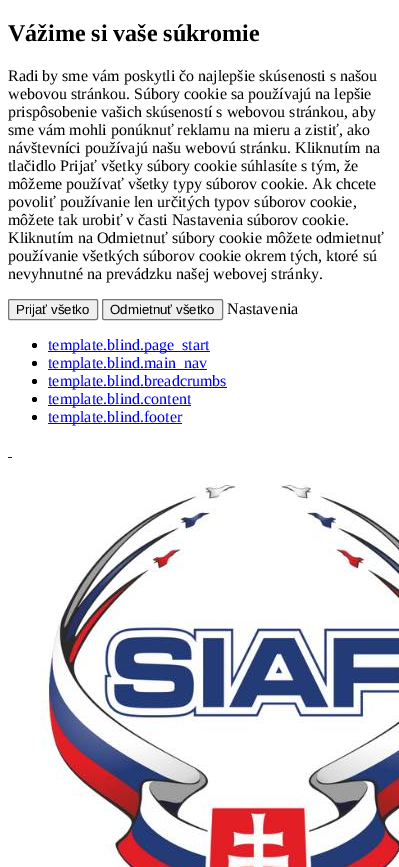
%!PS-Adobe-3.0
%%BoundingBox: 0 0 399 867
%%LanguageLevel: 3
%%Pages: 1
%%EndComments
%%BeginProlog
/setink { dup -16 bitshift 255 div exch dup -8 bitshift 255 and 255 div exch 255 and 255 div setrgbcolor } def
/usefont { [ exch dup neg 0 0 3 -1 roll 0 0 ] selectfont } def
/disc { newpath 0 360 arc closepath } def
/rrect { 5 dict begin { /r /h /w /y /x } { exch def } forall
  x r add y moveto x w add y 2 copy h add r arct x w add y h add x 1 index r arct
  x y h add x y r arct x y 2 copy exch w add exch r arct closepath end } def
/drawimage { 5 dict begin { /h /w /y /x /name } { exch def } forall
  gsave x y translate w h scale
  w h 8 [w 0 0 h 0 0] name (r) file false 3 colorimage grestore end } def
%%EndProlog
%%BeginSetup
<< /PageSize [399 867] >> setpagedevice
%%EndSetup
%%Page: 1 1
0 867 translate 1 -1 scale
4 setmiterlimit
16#FFFFFF setink
0 0 399 867 rectfill
/LiberationSerif-Bold 24 usefont
16#000000 setink
8 41 moveto (Vážime si vaše súkromie) show
/LiberationSerif-Regular 16 usefont
[
    [(Radi by sme vám poskytli čo najlepšie skúsenosti s našou) 8 81]
    [(webovou stránkou. Súbory cookie sa používajú na lepšie) 8 99]
    [(prispôsobenie vašich skúseností s webovou stránkou, aby) 8 117]
    [(sme vám mohli ponúknuť reklamu na mieru a zistiť, ako) 8 135]
    [(návštevníci používajú našu webovú stránku. Kliknutím na) 8 153]
    [(tlačidlo Prijať všetky súbory cookie súhlasíte s tým, že) 8 171]
    [(môžeme používať všetky typy súborov cookie. Ak chcete) 8 189]
    [(povoliť používanie len určitých typov súborov cookie,) 8 207]
    [(môžete tak urobiť v časti Nastavenia súborov cookie.) 8 225]
    [(Kliknutím na Odmietnuť súbory cookie môžete odmietnuť) 8 243]
    [(používanie všetkých súborov cookie okrem tých, ktoré sú) 8 261]
    [(nevyhnutné na prevádzku našej webovej stránky.) 8 279]
] { aload pop moveto show } forall
16#EFEFEF setink
8.5 299.5 89 20 1.5 rrect gsave fill grestore
16#767676 setink
stroke
/LiberationSans-Regular 13.25 usefont
16#000000 setink
16 314 moveto (Prijať všetko) show
16#EFEFEF setink
102.5 299.5 120 20 1.5 rrect gsave fill grestore
16#767676 setink
stroke
16#000000 setink
110 314 moveto (Odmietnuť všetko) show
/LiberationSerif-Regular 16 usefont
227 314 moveto (Nastavenia) show
34.5 345.5 2.5 disc fill
16#0000EE setink
48 351 162 1 rectfill
48 350 moveto (template.blind.page_start) show
16#000000 setink
34.5 363.5 2.5 disc fill
16#0000EE setink
48 369 159 1 rectfill
48 368 moveto (template.blind.main_nav) show
16#000000 setink
34.5 381.5 2.5 disc fill
16#0000EE setink
48 387 179 1 rectfill
48 386 moveto (template.blind.breadcrumbs) show
16#000000 setink
34.5 399.5 2.5 disc fill
16#0000EE setink
48 405 143 1 rectfill
48 404 moveto (template.blind.content) show
16#000000 setink
34.5 417.5 2.5 disc fill
16#0000EE setink
48 423 134 1 rectfill
48 422 moveto (template.blind.footer) show
8 457 4 1 rectfill
(img1.raw) 40 484 359 383 drawimage
showpage
%%EOF
